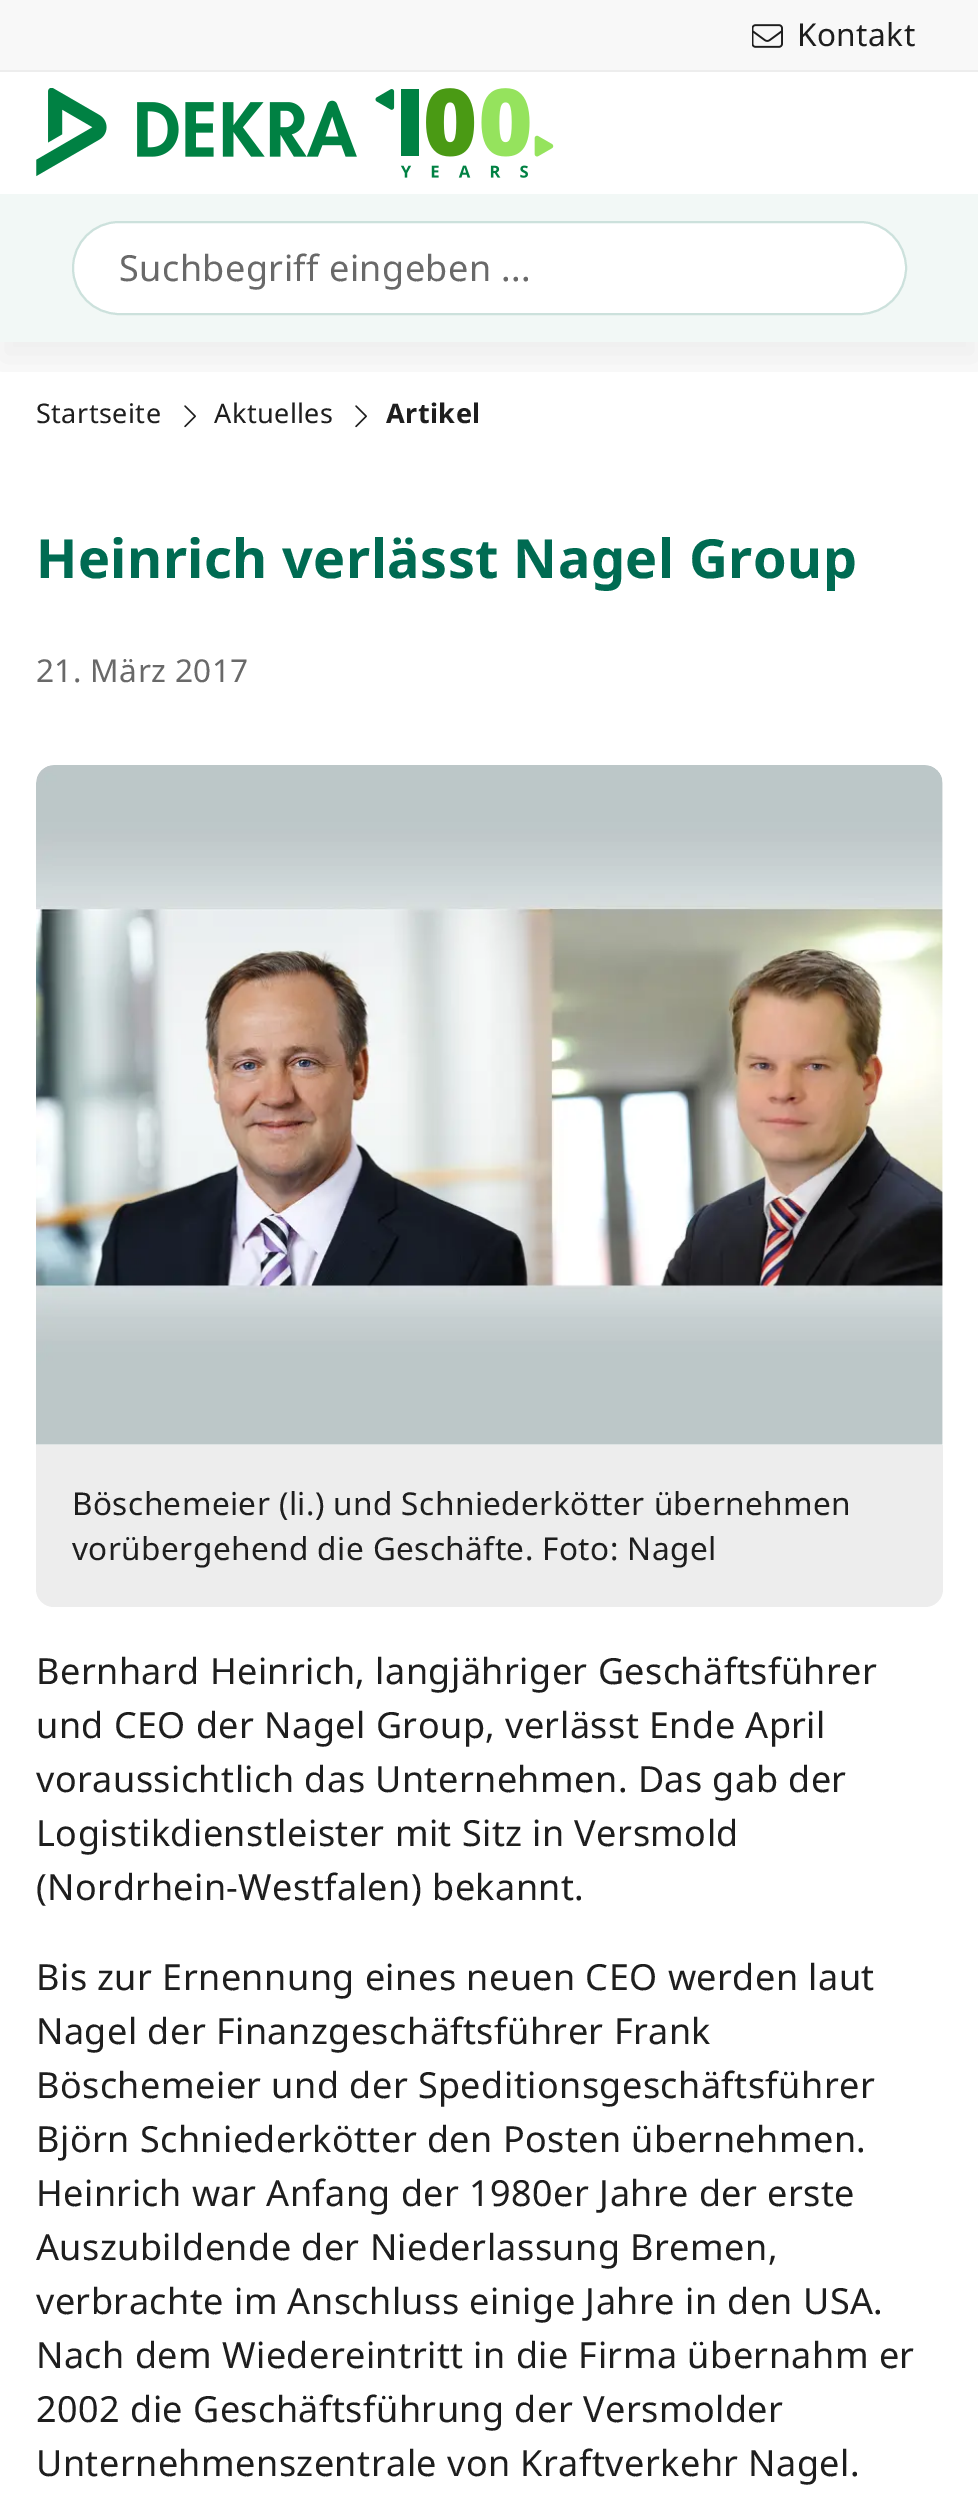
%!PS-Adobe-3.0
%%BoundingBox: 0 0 978 2503
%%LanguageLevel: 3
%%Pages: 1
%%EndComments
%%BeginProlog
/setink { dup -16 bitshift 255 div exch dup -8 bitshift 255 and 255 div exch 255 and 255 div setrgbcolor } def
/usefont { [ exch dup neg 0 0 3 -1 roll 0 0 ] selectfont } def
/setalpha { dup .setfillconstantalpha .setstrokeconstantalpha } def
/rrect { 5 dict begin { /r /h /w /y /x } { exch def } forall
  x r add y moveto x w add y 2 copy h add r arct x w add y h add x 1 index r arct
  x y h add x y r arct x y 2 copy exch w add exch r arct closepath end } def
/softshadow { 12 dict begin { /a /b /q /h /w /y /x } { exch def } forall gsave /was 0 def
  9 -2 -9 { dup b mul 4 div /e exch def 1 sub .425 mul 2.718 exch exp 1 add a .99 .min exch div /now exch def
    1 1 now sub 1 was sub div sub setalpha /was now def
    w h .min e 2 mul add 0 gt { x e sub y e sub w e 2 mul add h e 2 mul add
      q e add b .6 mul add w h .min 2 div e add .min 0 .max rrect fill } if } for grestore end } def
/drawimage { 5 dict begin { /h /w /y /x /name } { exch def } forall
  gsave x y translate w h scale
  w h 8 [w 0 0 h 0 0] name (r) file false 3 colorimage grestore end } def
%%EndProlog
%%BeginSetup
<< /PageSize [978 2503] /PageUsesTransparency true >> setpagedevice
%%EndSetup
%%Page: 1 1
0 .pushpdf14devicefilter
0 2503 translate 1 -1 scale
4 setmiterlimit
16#FFFFFF setink
0 0 978 2503 rectfill
(img3.raw) 184 405 12 23 drawimage
(img3.raw) 355 405 12 23 drawimage
gsave
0 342 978 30 rectclip
16#1E1E1E setink
0 18 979 342 0 18 0.08 softshadow
grestore
16#F8F8F8 setink
0 0 978 70 rectfill
16#EDEDED setink
0 70 978 2 rectfill
(img1.raw) 752 24 31 24 drawimage
/NotoSans-Regular 31.5 usefont
16#1E1E1E setink
797 46 moveto 0.45 0 (Kontakt) ashow
(img2.raw) 36 88 518 90 drawimage
16#F2F8F6 setink
0 194 978 148 rectfill
16#FFFFFF setink
73 222 833 92 46 rrect gsave fill grestore
16#CCE1DC setink
2 setlinewidth
stroke
/NotoSans-Regular 36 usefont
16#696969 setink
119 281 moveto 0.45 0 (Suchbegriff eingeben ...) ashow
/NotoSans-Regular 27 usefont
16#1E1E1E setink
36 423 moveto 0.45 0 (Startseite) ashow
214 423 moveto 0.45 0 (Aktuelles) ashow
/NotoSans-Bold 27 usefont
386 423 moveto 0.45 0 (Artikel) ashow
/NotoSans-Bold 54 usefont
16#006B52 setink
36 578 moveto 0.45 0 (Heinrich verlässt Nagel Group) ashow
/NotoSans-Regular 31.5 usefont
16#696969 setink
36 682 moveto 0.45 0 (21. März 2017) ashow
(img4.raw) 36 765 907 680 drawimage
16#EDEDED setink
36 1445 moveto 943 1445 lineto 943 1589 lineto 943 1599 935 1607 925 1607 curveto 54 1607 lineto 44 1607 36 1599 36 1589 curveto closepath fill
16#1E1E1E setink
72 1515 moveto 0.45 0 (Böschemeier \(li.\) und Schniederkötter übernehmen) ashow
72 1560 moveto 0.45 0 (vorübergehend die Geschäfte. Foto: Nagel) ashow
/NotoSans-Regular 36 usefont
36 1684 moveto 0.45 0 (Bernhard Heinrich, langjähriger Geschäftsführer) ashow
36 1738 moveto 0.45 0 (und CEO der Nagel Group, verlässt Ende April) ashow
36 1792 moveto 0.45 0 (voraussichtlich das Unternehmen. Das gab der) ashow
36 1846 moveto 0.45 0 (Logistikdienstleister mit Sitz in Versmold) ashow
36 1900 moveto 0.45 0 (\(Nordrhein-Westfalen\) bekannt.) ashow
36 1990 moveto 0.45 0 (Bis zur Ernennung eines neuen CEO werden laut) ashow
36 2044 moveto 0.45 0 (Nagel der Finanzgeschäftsführer Frank) ashow
36 2098 moveto 0.45 0 (Böschemeier und der Speditionsgeschäftsführer) ashow
36 2152 moveto 0.45 0 (Björn Schniederkötter den Posten übernehmen.) ashow
36 2206 moveto 0.45 0 (Heinrich war Anfang der 1980er Jahre der erste) ashow
36 2260 moveto 0.45 0 (Auszubildende der Niederlassung Bremen,) ashow
36 2314 moveto 0.45 0 (verbrachte im Anschluss einige Jahre in den USA.) ashow
36 2368 moveto 0.45 0 (Nach dem Wiedereintritt in die Firma übernahm er) ashow
36 2422 moveto 0.45 0 (2002 die Geschäftsführung der Versmolder) ashow
36 2476 moveto 0.45 0 (Unternehmenszentrale von Kraftverkehr Nagel.) ashow
.poppdf14devicefilter showpage
%%EOF
